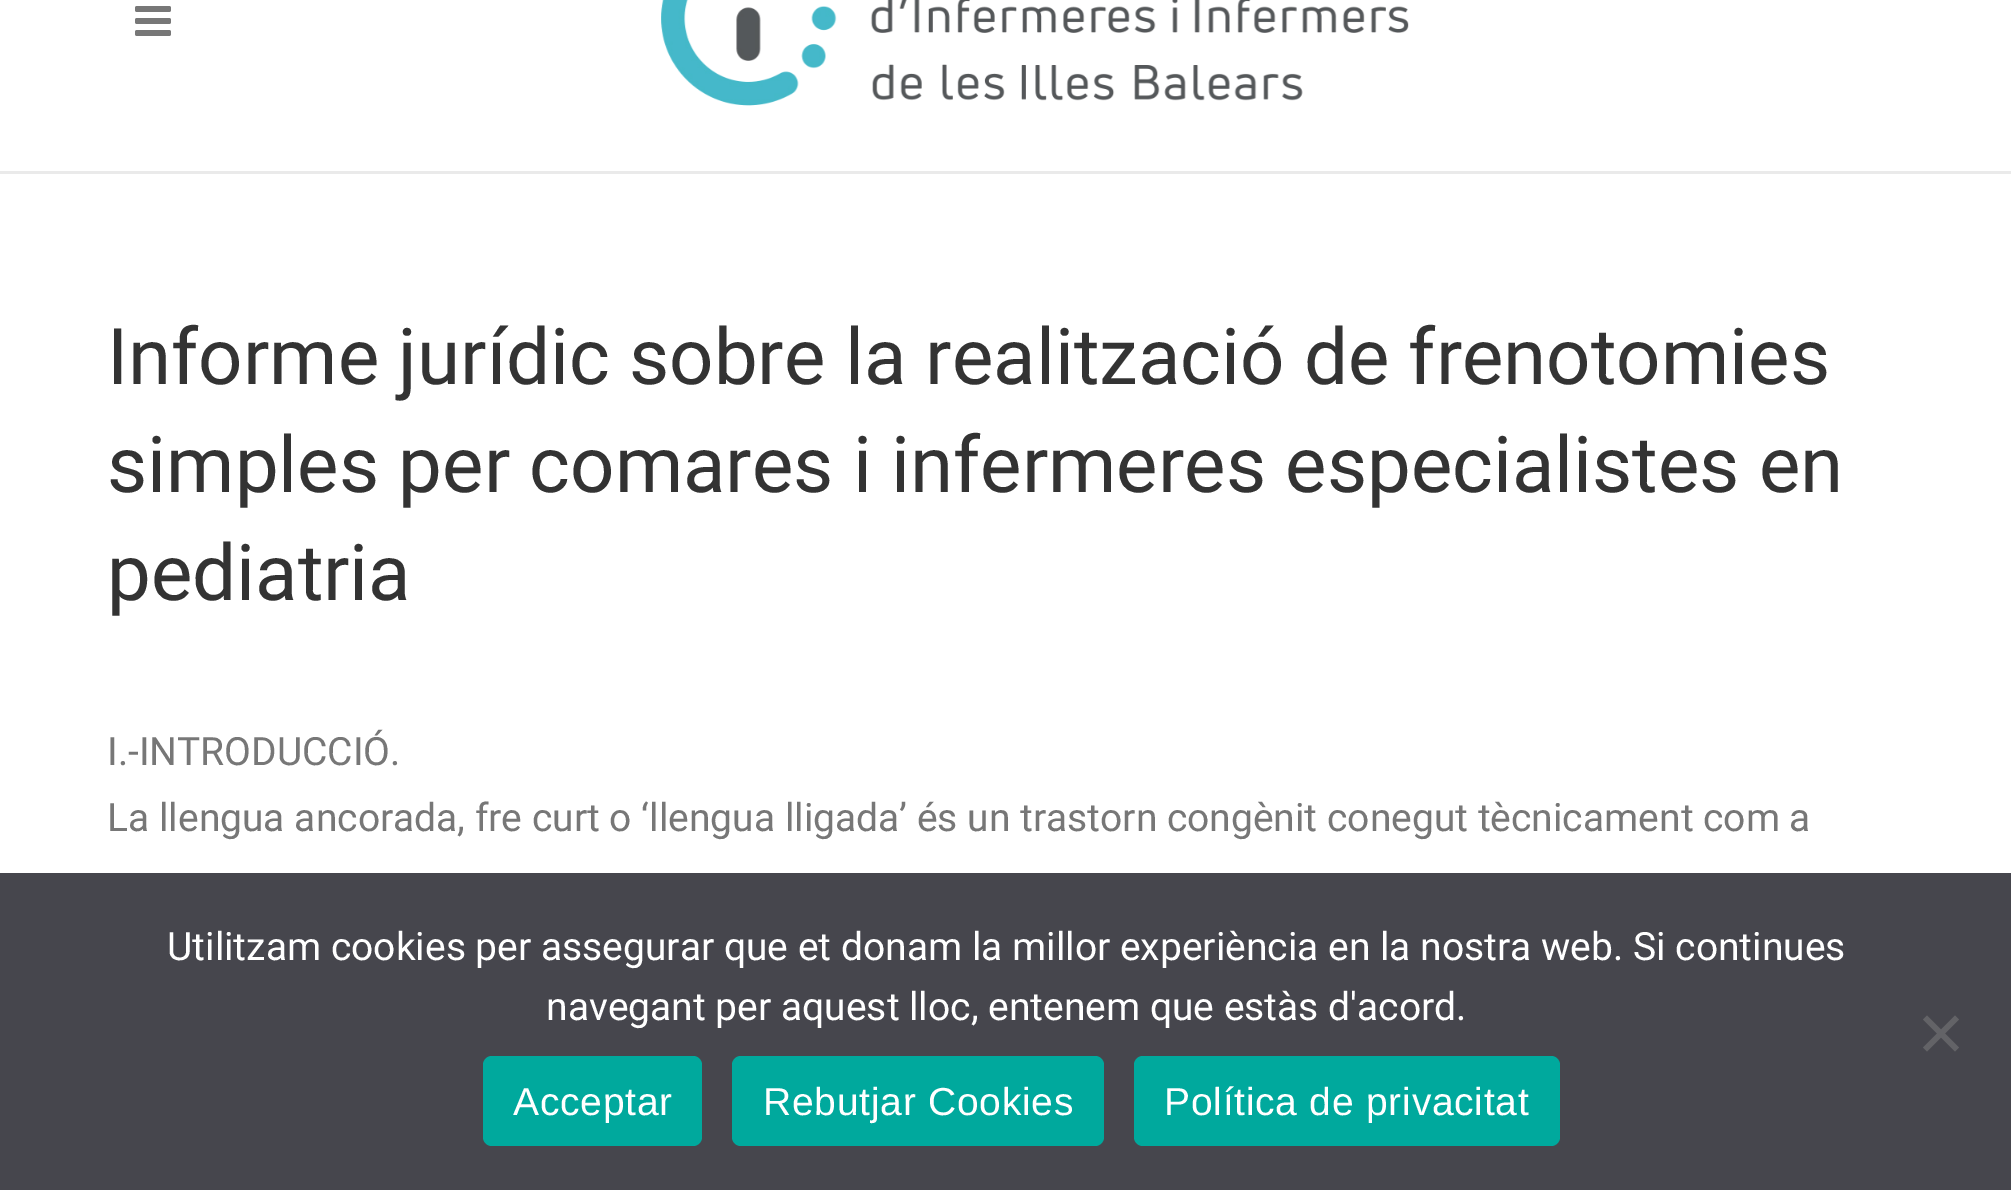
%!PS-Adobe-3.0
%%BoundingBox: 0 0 2011 1190
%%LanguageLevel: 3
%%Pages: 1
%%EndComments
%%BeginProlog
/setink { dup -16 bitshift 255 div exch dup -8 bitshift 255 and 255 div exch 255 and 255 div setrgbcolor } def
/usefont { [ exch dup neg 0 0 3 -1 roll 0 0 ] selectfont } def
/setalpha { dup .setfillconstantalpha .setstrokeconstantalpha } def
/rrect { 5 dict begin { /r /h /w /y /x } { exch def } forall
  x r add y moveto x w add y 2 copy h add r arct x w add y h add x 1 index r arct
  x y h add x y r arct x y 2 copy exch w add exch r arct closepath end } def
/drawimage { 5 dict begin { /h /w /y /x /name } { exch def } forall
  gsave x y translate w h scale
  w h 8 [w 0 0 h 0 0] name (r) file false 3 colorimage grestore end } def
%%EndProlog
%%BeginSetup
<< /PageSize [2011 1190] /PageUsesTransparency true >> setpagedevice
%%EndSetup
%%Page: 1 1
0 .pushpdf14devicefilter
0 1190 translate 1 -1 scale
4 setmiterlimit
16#FFFFFF setink
0 0 2011 1190 rectfill
16#EAEAEA setink
0 171 2011 3 rectfill
(img1.raw) 135 6 36 30 drawimage
(img2.raw) 661 0 748 106 drawimage
/Roboto-Regular 78 usefont
16#333333 setink
[
    [(Informe jurídic sobre la realització de frenotomies) 107 384]
    [(simples per comares i infermeres especialistes en) 107 492]
    [(pediatria) 107 600]
] { aload pop moveto show } forall
/Roboto-Regular 39 usefont
16#777777 setink
107 765 moveto (I.-INTRODUCCIÓ.) show
107 831 moveto (La llengua ancorada, fre curt o ‘llengua lligada’ és un trastorn congènit conegut tècnicament com a) show
0.9 setalpha
16#32323A setink
0 873 2011 317 rectfill
1 setalpha
16#FFFFFF setink
167 960 moveto (Utilitzam cookies per assegurar que et donam la millor experiència en la nostra web. Si continues) show
546 1020 moveto (navegant per aquest lloc, entenem que estàs d'acord.) show
16#636367 setink
1955 1015.5 moveto 1959 1019.5 lineto 1927 1051.5 lineto 1923 1047.5 lineto closepath fill
1923 1019.5 moveto 1927 1015.5 lineto 1959 1047.5 lineto 1955 1051.5 lineto closepath fill
16#00A99D setink
483 1056 219 90 9 rrect fill
/LiberationSans-Regular 39 usefont
16#FFFFFF setink
513 1115 moveto 0.75 0 (Acceptar) ashow
16#00A99D setink
732 1056 372 90 9 rrect fill
16#FFFFFF setink
763 1115 moveto 0.75 0 (Rebutjar Cookies) ashow
16#00A99D setink
1134 1056 426 90 9 rrect fill
16#FFFFFF setink
1164 1115 moveto 0.75 0 (Política de privacitat) ashow
.poppdf14devicefilter showpage
%%EOF
